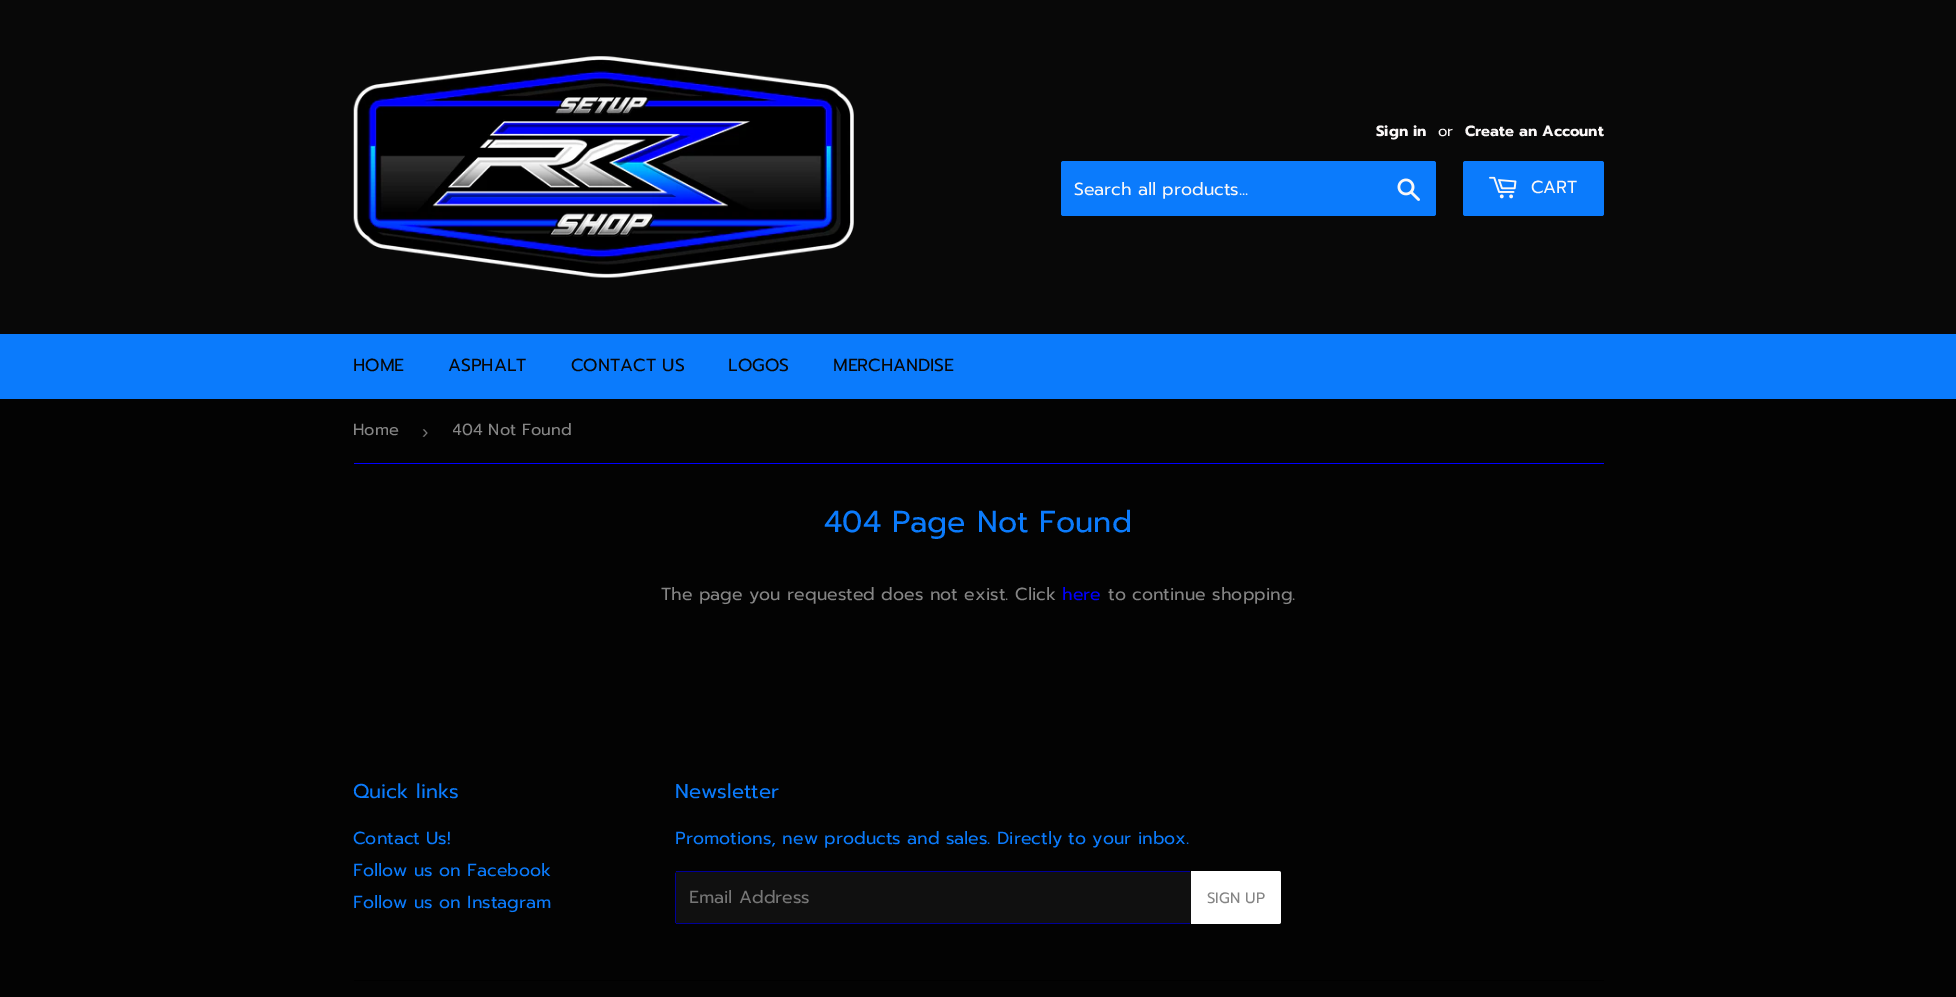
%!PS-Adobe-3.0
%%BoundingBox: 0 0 1956 997
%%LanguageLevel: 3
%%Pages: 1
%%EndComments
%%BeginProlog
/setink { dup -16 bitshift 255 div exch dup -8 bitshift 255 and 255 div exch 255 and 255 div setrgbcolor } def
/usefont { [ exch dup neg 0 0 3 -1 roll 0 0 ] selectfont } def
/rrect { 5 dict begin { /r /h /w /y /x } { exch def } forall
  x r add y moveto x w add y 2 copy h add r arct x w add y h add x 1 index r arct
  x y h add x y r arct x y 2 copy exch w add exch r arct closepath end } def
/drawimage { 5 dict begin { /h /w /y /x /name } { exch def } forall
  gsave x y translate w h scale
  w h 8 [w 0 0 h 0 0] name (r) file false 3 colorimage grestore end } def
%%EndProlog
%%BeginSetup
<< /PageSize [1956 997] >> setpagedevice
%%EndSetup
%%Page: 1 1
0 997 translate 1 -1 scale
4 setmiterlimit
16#030303 setink
0 0 1956 997 rectfill
16#080808 setink
0 0 1956 334 rectfill
(img1.raw) 353 56 501 222 drawimage
/Prompt-Bold 14.9 usefont
16#FAF7F7 setink
1376 136 moveto (Sign in) show
/Prompt-Regular 14.9 usefont
1438 136 moveto (or) show
/Prompt-Bold 14.9 usefont
1465 136 moveto (Create an Account) show
16#0B7BFC setink
1061 161 375 55 2.5 rrect fill
/Prompt-Regular 17.5 usefont
16#FAF7F7 setink
1074 195 moveto (Search all products...) show
(img2.raw) 1397 178 23 23 drawimage
16#0B7BFC setink
1463 161 141 55 2.5 rrect fill
(img3.raw) 1489 176 28 23 drawimage
16#FAF7F7 setink
1531 193 moveto (CART) show
16#0B7BFC setink
0 334 1956 65 rectfill
16#080808 setink
[
    [(HOME) 353 371]
    [(ASPHALT) 448 371]
    [(CONTACT US) 571 371]
    [(LOGOS) 728 371]
    [(MERCHANDISE) 833 371]
] { aload pop moveto show } forall
16#0000FF setink
354 463 1250 1 rectfill
/Prompt-Regular 16.25 usefont
16#858585 setink
353 435 moveto (Home) show
/LiberationSans-Regular 19 usefont
16#767676 setink
422 438 moveto (›) show
gsave
453 399 127 64 rectclip
/Prompt-Regular 16.25 usefont
16#858585 setink
452 435 moveto (404 Not Found) show
grestore
/Prompt-Regular 30.25 usefont
16#0B7BFC setink
824 532 moveto (404 Page Not Found) show
/Prompt-Regular 17.5 usefont
16#858585 setink
661 600 moveto (The page you requested does not exist. Click) show
16#0000FF setink
1062 600 moveto (here) show
16#858585 setink
1108 600 moveto (to continue shopping.) show
/Prompt-Regular 20 usefont
16#0B7BFC setink
353 798 moveto (Quick links) show
/Prompt-Regular 17.5 usefont
[
    [(Contact Us!) 353 844]
    [(Follow us on Facebook) 353 876]
    [(Follow us on Instagram) 353 908]
] { aload pop moveto show } forall
/Prompt-Regular 20 usefont
675 798 moveto (Newsletter) show
/Prompt-Regular 17.5 usefont
675 844 moveto (Promotions, new products and sales. Directly to your inbox.) show
16#101010 setink
675 871 516 53 2.5 rrect fill
[
    [676 871 514 1 16#000099]
    [676 923 514 1 16#000099]
    [675 873 1 50 16#000099]
] { aload pop setink rectfill } forall
16#767676 setink
689 903 moveto (Email Address) show
16#FFFFFF setink
1191 871 moveto 1278.5 871 lineto 1280 871 1281 872 1281 873.5 curveto 1281 921.5 lineto 1281 923 1280 924 1278.5 924 curveto 1191 924 lineto closepath fill
/Prompt-Regular 15 usefont
16#858585 setink
1207 903 moveto (SIGN UP) show
16#000000 setink
354 980 1250 1 rectfill
showpage
%%EOF
